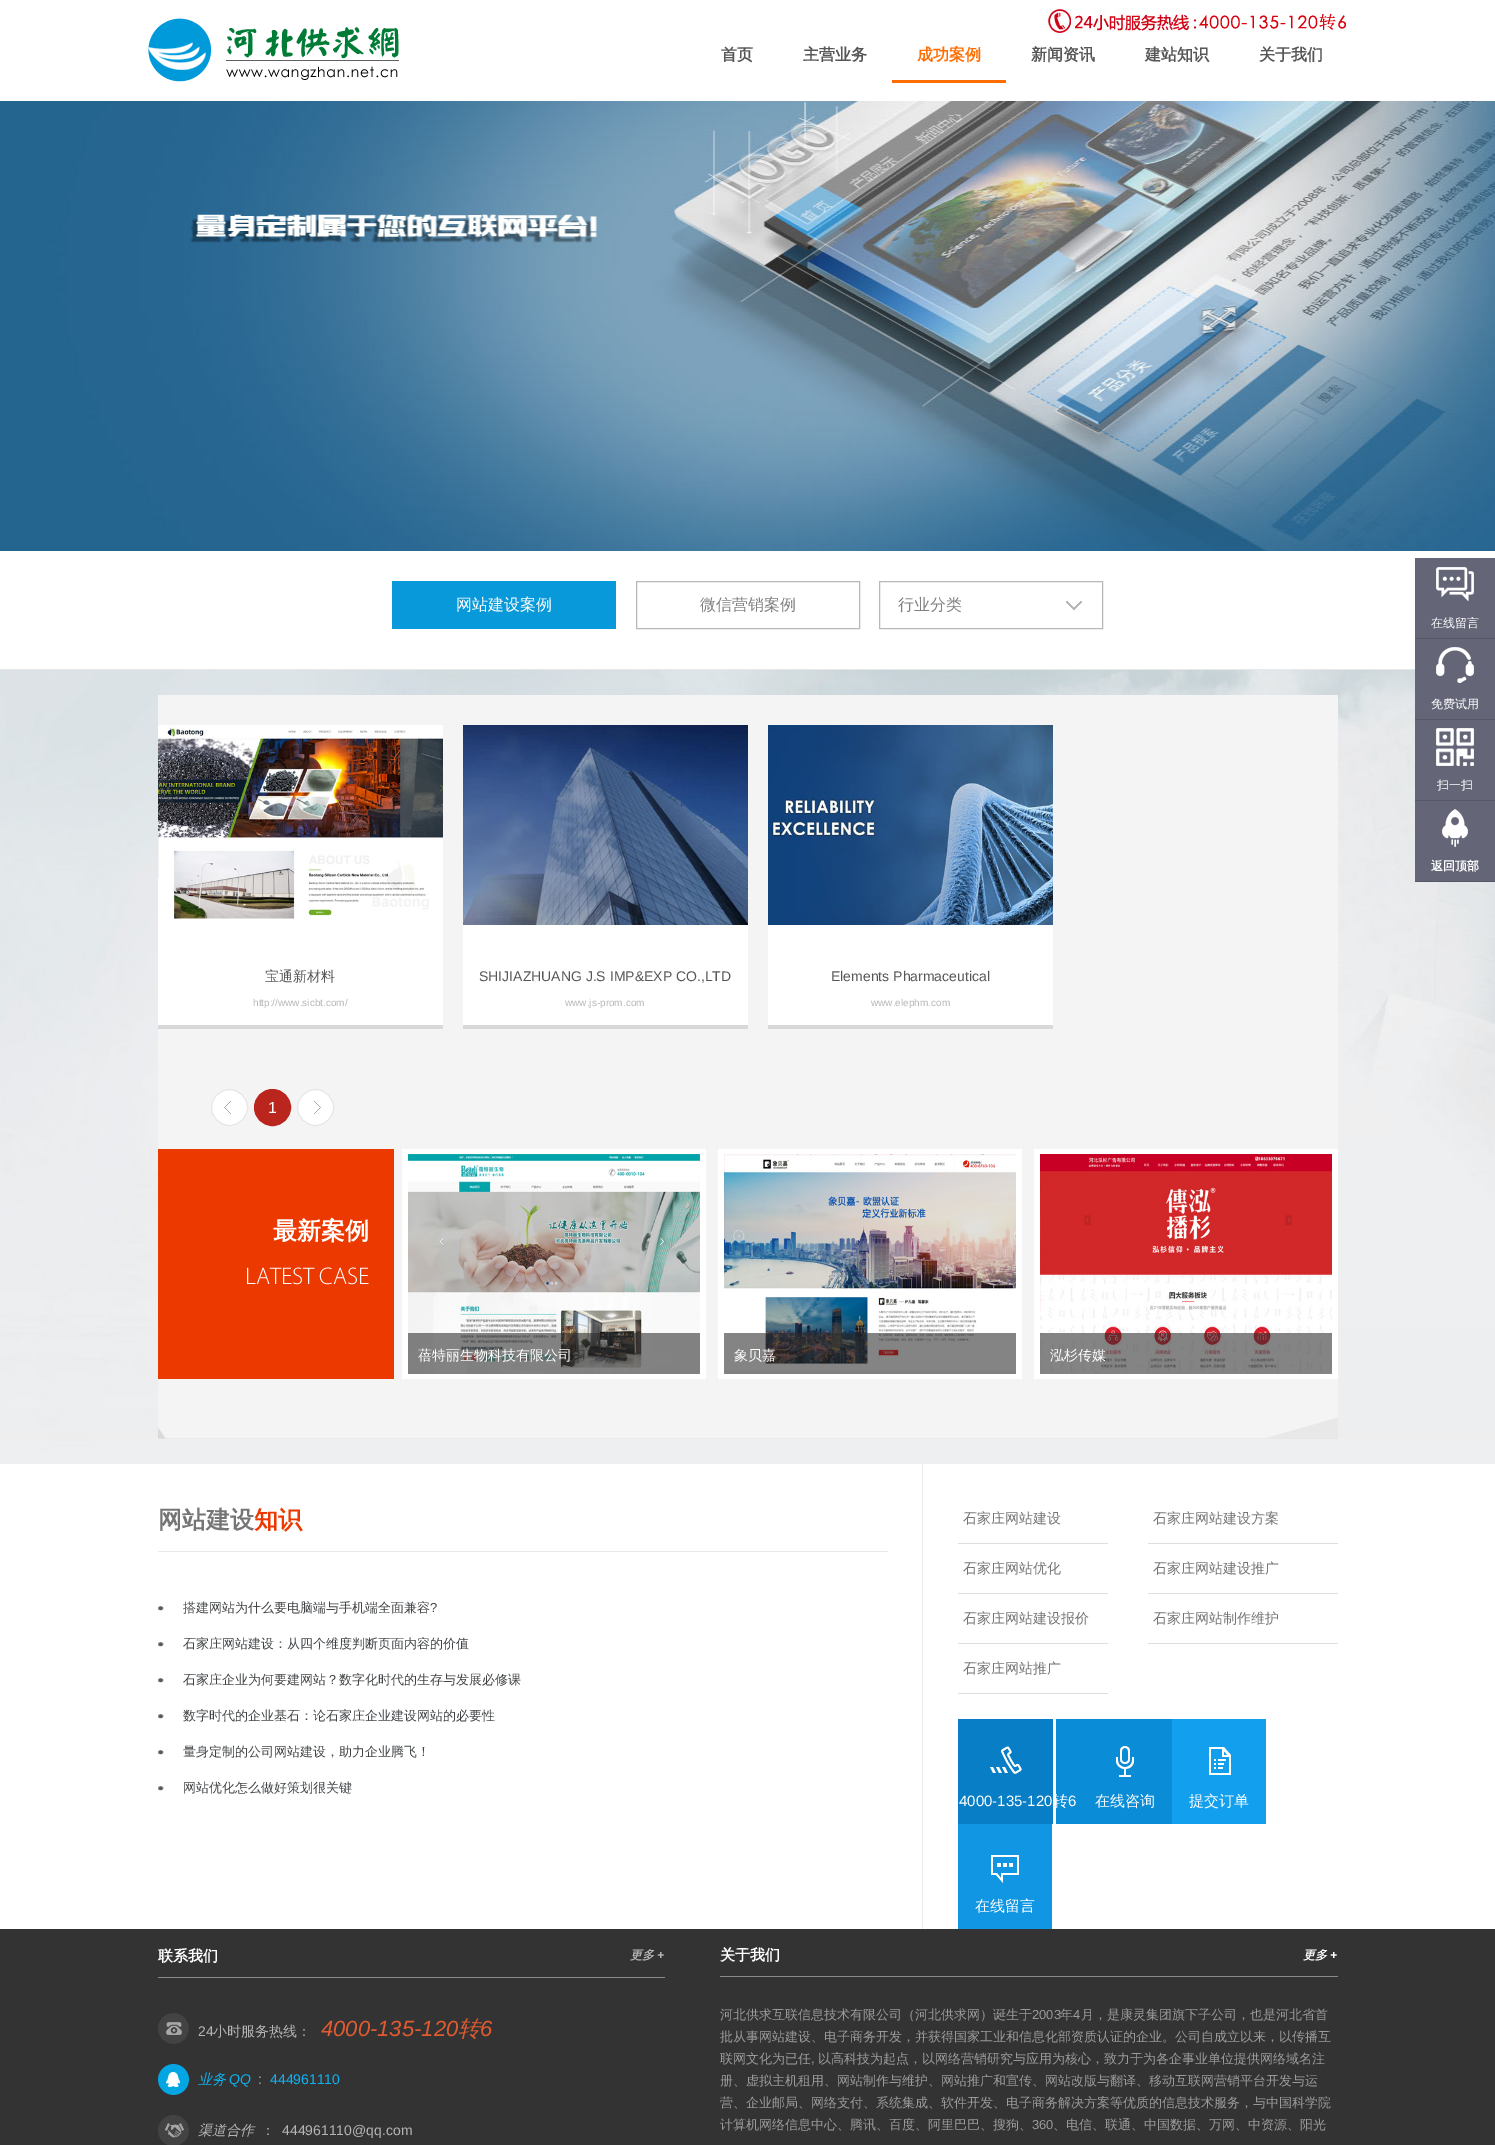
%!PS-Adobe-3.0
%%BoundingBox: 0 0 1495 2145
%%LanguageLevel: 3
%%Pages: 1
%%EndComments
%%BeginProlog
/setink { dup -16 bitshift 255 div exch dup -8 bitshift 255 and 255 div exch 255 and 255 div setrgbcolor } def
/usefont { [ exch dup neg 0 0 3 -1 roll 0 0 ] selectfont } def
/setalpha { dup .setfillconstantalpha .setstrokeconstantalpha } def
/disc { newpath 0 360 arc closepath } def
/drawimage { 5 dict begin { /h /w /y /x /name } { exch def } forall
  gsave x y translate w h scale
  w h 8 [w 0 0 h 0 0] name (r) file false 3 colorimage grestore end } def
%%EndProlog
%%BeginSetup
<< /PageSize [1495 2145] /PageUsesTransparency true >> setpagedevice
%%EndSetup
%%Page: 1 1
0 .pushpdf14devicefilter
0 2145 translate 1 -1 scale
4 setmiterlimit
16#FFFFFF setink
0 0 1495 2145 rectfill
(img1.raw) 148 18 251 64 drawimage
(img2.raw) 1045 8 301 27 drawimage
/WenQuanYiZenHei-Bold 16 usefont
16#565656 setink
721 60 moveto (首页) show
803 60 moveto (主营业务) show
16#FF6C00 setink
892 80 114 3 rectfill
917 60 moveto (成功案例) show
16#565656 setink
[
    [(新闻资讯) 1031 60]
    [(建站知识) 1145 60]
    [(关于我们) 1259 60]
] { aload pop moveto show } forall
(img3.raw) 0 101 1495 450 drawimage
16#E8E8E8 setink
0 669 1415 1 rectfill
16#0799D9 setink
392 581 224 48 rectfill
/WenQuanYiZenHei-Medium 16 usefont
16#FFFFFF setink
456 610 moveto (网站建设案例) show
16#B9B8B8 setink
636.5 581.5 223 47 rectstroke
16#808080 setink
700 610 moveto (微信营销案例) show
(img4.raw) 1066 601 16 9 drawimage
16#B9B8B8 setink
879.5 581.5 223 47 rectstroke
16#808080 setink
898 610 moveto (行业分类) show
16#646577 setink
1415 558 80 80 rectfill
(img5.raw) 1436 567 38 34 drawimage
16#555666 setink
1415 638 80 1 rectfill
/WenQuanYiZenHei-Medium 12 usefont
16#FFFFFF setink
1431 627 moveto (在线留言) show
(img9.raw) 0 670 1495 794 drawimage
16#646577 setink
1415 639 80 80 rectfill
(img6.raw) 1436 647 38 36 drawimage
16#555666 setink
1415 719 80 1 rectfill
16#FFFFFF setink
1431 708 moveto (免费试用) show
16#646577 setink
1415 720 80 80 rectfill
(img7.raw) 1436 728 38 38 drawimage
16#555666 setink
1415 800 80 1 rectfill
16#FFFFFF setink
1437 789 moveto (扫一扫) show
16#646577 setink
1415 801 80 80 rectfill
(img8.raw) 1442 809 26 38 drawimage
16#555666 setink
1415 881 80 1 rectfill
/WenQuanYiZenHei-Bold 12 usefont
16#FFFFFF setink
1431 870 moveto (返回顶部) show
[
    [158 695 1180 722 16#F4F4F4]
    [158 919 285 106 16#FFFFFF]
    [158 1025 285 4 16#D8D8D8]
] { aload pop setink rectfill } forall
(img10.raw) 158 725 285 194 drawimage
/WenQuanYiZenHei-Medium 14 usefont
16#565656 setink
265 981 moveto (宝通新材料) show
/LiberationSans-Regular 10 usefont
16#B5B5B5 setink
253 1006 moveto (http://www.sicbt.com/) show
16#FFFFFF setink
463 925 285 100 rectfill
16#D8D8D8 setink
463 1025 285 4 rectfill
(img11.raw) 463 725 285 200 drawimage
/LiberationSans-Regular 14 usefont
16#565656 setink
479 981 moveto (SHIJIAZHUANG J.S IMP&EXP CO.,LTD) show
/LiberationSans-Regular 10 usefont
16#B5B5B5 setink
565 1006 moveto (www.js-prom.com) show
16#FFFFFF setink
768 925 285 100 rectfill
16#D8D8D8 setink
768 1025 285 4 rectfill
(img12.raw) 768 725 285 200 drawimage
/LiberationSans-Regular 14 usefont
16#565656 setink
831 981 moveto (Elements Pharmaceutical) show
/LiberationSans-Regular 10 usefont
16#B5B5B5 setink
871 1006 moveto (www.elephm.com) show
16#FFFFFF setink
229.5 1107.5 18.5 disc fill
(img13.raw) 224 1101 7 13 drawimage
16#E5E5E5 setink
229.5 1107.5 18 disc stroke
16#BA251E setink
272.5 1107.5 18 disc gsave fill grestore
stroke
/LiberationSans-Regular 16 usefont
16#FFFFFF setink
268 1113 moveto (1) show
315.5 1107.5 18.5 disc fill
(img14.raw) 314 1101 7 13 drawimage
16#E5E5E5 setink
315.5 1107.5 18 disc stroke
(img15.raw) 158 1417 1180 22 drawimage
16#EB3900 setink
158 1149 236 230 rectfill
/WenQuanYiZenHei-Bold 24 usefont
16#FFFFFF setink
273 1239 moveto (最新案例) show
(img16.raw) 247 1267 122 18 drawimage
402 1149 304 230 rectfill
(img17.raw) 408 1154 292 220 drawimage
0.58 setalpha
16#2B2B2B setink
408 1333 292 41 rectfill
/WenQuanYiZenHei-Medium 14 usefont
1 setalpha
16#FFFFFF setink
418 1360 moveto (蓓特丽生物科技有限公司) show
718 1149 304 230 rectfill
(img18.raw) 724 1154 292 220 drawimage
0.58 setalpha
16#2B2B2B setink
724 1333 292 41 rectfill
1 setalpha
16#FFFFFF setink
734 1360 moveto (象贝嘉) show
1034 1149 304 230 rectfill
(img19.raw) 1040 1154 292 219 drawimage
0.58 setalpha
16#2B2B2B setink
1040 1333 292 41 rectfill
1 setalpha
16#FFFFFF setink
1050 1360 moveto (泓杉传媒) show
16#EAEAEA setink
158 1551 730 1 rectfill
/WenQuanYiZenHei-Bold 24 usefont
16#767575 setink
158 1528 moveto (网站建设) show
16#EB3900 setink
254 1528 moveto (知识) show
(img20.raw) 158 1606 6 5 drawimage
/WenQuanYiZenHei-Medium 13 usefont
16#414446 setink
183 1612 moveto (搭建网站为什么要电脑端与手机端全面兼容) show
/LiberationSans-Regular 13 usefont
430 1612 moveto (?) show
(img20.raw) 158 1642 6 5 drawimage
/WenQuanYiZenHei-Medium 13 usefont
183 1648 moveto (石家庄网站建设：从四个维度判断页面内容的价值) show
(img20.raw) 158 1678 6 5 drawimage
183 1684 moveto (石家庄企业为何要建网站？数字化时代的生存与发展必修课) show
(img20.raw) 158 1714 6 5 drawimage
183 1720 moveto (数字时代的企业基石：论石家庄企业建设网站的必要性) show
(img20.raw) 158 1750 6 5 drawimage
183 1756 moveto (量身定制的公司网站建设，助力企业腾飞！) show
(img20.raw) 158 1786 6 5 drawimage
183 1792 moveto (网站优化怎么做好策划很关键) show
16#EAEAEA setink
922 1464 1 465 rectfill
16#DEDEDE setink
958 1543 150 1 rectfill
/WenQuanYiZenHei-Medium 14 usefont
16#767575 setink
963 1523 moveto (石家庄网站建设) show
16#DEDEDE setink
958 1593 150 1 rectfill
16#767575 setink
963 1573 moveto (石家庄网站优化) show
16#DEDEDE setink
958 1643 150 1 rectfill
16#767575 setink
963 1623 moveto (石家庄网站建设报价) show
16#DEDEDE setink
958 1693 150 1 rectfill
16#767575 setink
963 1673 moveto (石家庄网站推广) show
16#DEDEDE setink
1148 1543 190 1 rectfill
16#767575 setink
1153 1523 moveto (石家庄网站建设方案) show
16#DEDEDE setink
1148 1593 190 1 rectfill
16#767575 setink
1153 1573 moveto (石家庄网站建设推广) show
16#DEDEDE setink
1148 1643 190 1 rectfill
16#767575 setink
1153 1623 moveto (石家庄网站制作维护) show
(img21.raw) 958 1719 120 105 drawimage
/LiberationSans-Regular 15 usefont
16#FFFFFF setink
959 1806 moveto (4000-135-120) show
/WenQuanYiZenHei-Medium 15 usefont
1053 1806 moveto (转) show
/LiberationSans-Regular 15 usefont
1068 1806 moveto (6) show
(img22.raw) 1078 1719 94 105 drawimage
/WenQuanYiZenHei-Medium 15 usefont
1095 1806 moveto (在线咨询) show
(img23.raw) 1172 1719 94 105 drawimage
1189 1806 moveto (提交订单) show
(img24.raw) 958 1824 94 105 drawimage
975 1911 moveto (在线留言) show
16#333333 setink
0 1929 1495 216 rectfill
16#888888 setink
158 1977 507 1 rectfill
/WenQuanYiZenHei-Bold 15 usefont
16#FFFFFF setink
158 1961 moveto (联系我们) show
/WenQuanYiZenHei-BoldItalic 12 usefont
16#B5B5B5 setink
630 1959 moveto (更多) show
/LiberationSans-BoldItalic 12 usefont
657 1959 moveto (+) show
(img25.raw) 158 2013 31 31 drawimage
/LiberationSans-Regular 14 usefont
198 2036 moveto (24) show
/WenQuanYiZenHei-Medium 14 usefont
213 2036 moveto (小时服务热线：) show
/LiberationSans-Italic 22 usefont
16#E05B2F setink
321 2036 moveto (4000-135-120) show
/WenQuanYiZenHei-MediumItalic 22 usefont
458 2036 moveto (转) show
/LiberationSans-Italic 22 usefont
480 2036 moveto (6) show
(img26.raw) 158 2064 31 31 drawimage
/WenQuanYiZenHei-MediumItalic 14 usefont
16#0DB3F3 setink
198 2084 moveto (业务) show
/LiberationSans-Italic 14 usefont
229 2084 moveto (QQ) show
/LiberationSans-Regular 14 usefont
16#B5B5B5 setink
258 2084 moveto (:) show
16#0DB3F3 setink
270 2084 moveto (444961110) show
(img27.raw) 158 2115 31 30 drawimage
/WenQuanYiZenHei-MediumItalic 14 usefont
16#B5B5B5 setink
198 2135 moveto (渠道合作) show
/WenQuanYiZenHei-Medium 14 usefont
261 2135 moveto (：) show
/LiberationSans-Regular 14 usefont
282 2135 moveto (444961110@qq.com) show
16#888888 setink
720 1976 618 1 rectfill
/WenQuanYiZenHei-Bold 15 usefont
16#FFFFFF setink
720 1960 moveto (关于我们) show
/WenQuanYiZenHei-BoldItalic 12 usefont
1303 1959 moveto (更多) show
/LiberationSans-BoldItalic 12 usefont
1330 1959 moveto (+) show
/WenQuanYiZenHei-Medium 13 usefont
16#9B9B9B setink
720 2019 moveto (河北供求互联信息技术有限公司（河北供求网）诞生于) show
/LiberationSans-Regular 13 usefont
1032 2019 moveto (2003) show
/WenQuanYiZenHei-Medium 13 usefont
1060 2019 moveto (年) show
/LiberationSans-Regular 13 usefont
1073 2019 moveto (4) show
/WenQuanYiZenHei-Medium 13 usefont
[
    [(月，是康灵集团旗下子公司，也是河北省首) 1081 2019]
    [(批从事网站建设、电子商务开发，并获得国家工业和信息化部资质认证的企业。公司自成立以来，以传播互) 720 2041]
    [(联网文化为已任) 720 2063]
] { aload pop moveto show } forall
/LiberationSans-Regular 13 usefont
811 2063 moveto (,) show
/WenQuanYiZenHei-Medium 13 usefont
[
    [(以高科技为起点，以网络营销研究与应用为核心，致力于为各企事业单位提供网络域名注) 818 2063]
    [(册、虚拟主机租用、网站制作与维护、网站推广和宣传、网站改版与翻译、移动互联网营销平台开发与运) 720 2085]
    [(营、企业邮局、网络支付、系统集成、软件开发、电子商务解决方案等优质的信息技术服务，与中国科学院) 720 2107]
    [(计算机网络信息中心、腾讯、百度、阿里巴巴、搜狗、) 720 2129]
] { aload pop moveto show } forall
/LiberationSans-Regular 13 usefont
1032 2129 moveto (360) show
/WenQuanYiZenHei-Medium 13 usefont
1053 2129 moveto (、电信、联通、中国数据、万网、中资源、阳光) show
.poppdf14devicefilter showpage
%%EOF
